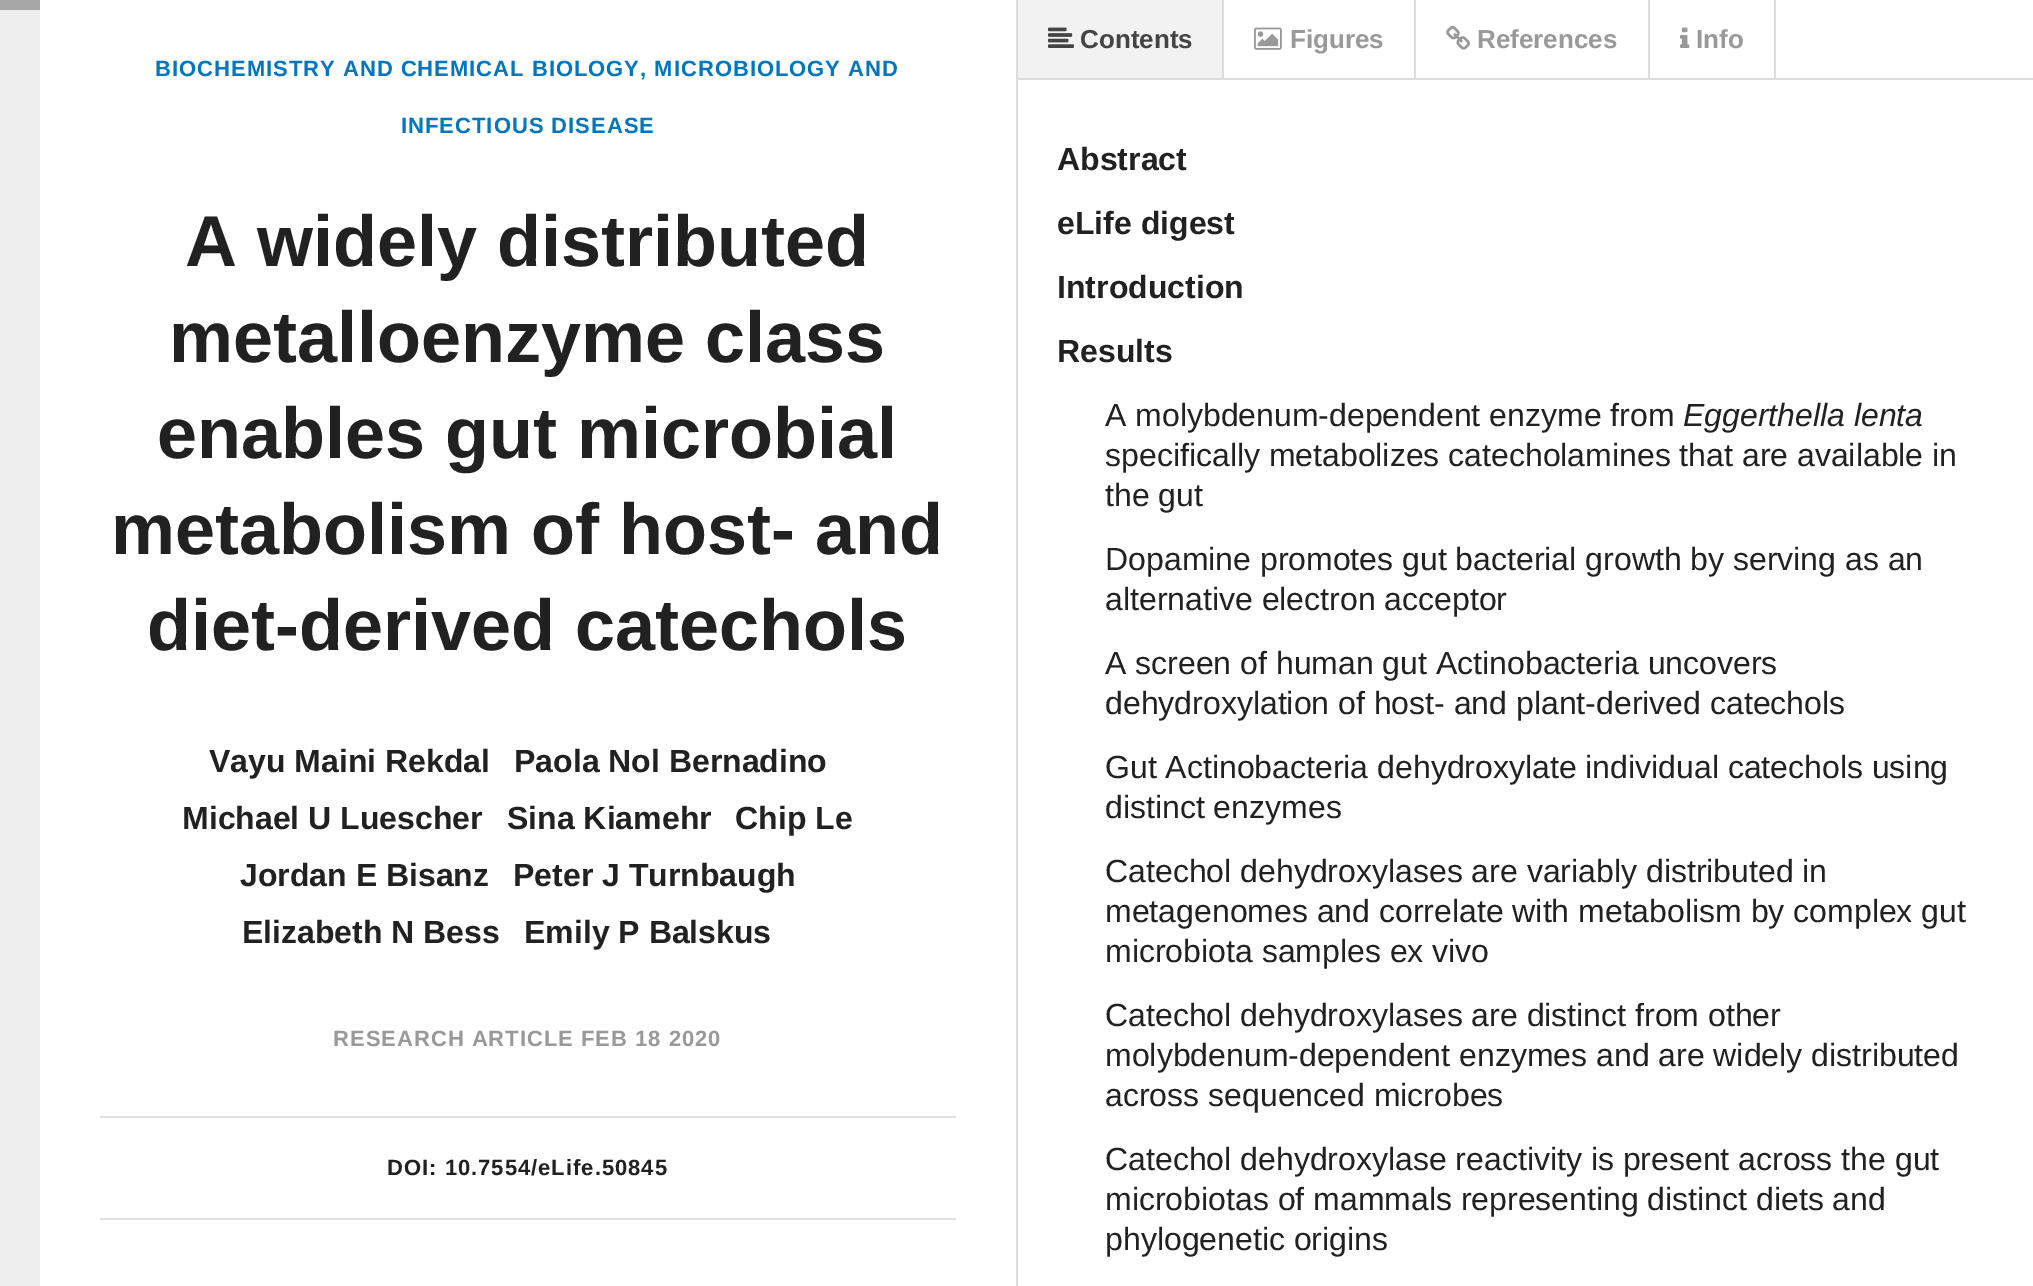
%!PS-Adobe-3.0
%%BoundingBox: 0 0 2033 1286
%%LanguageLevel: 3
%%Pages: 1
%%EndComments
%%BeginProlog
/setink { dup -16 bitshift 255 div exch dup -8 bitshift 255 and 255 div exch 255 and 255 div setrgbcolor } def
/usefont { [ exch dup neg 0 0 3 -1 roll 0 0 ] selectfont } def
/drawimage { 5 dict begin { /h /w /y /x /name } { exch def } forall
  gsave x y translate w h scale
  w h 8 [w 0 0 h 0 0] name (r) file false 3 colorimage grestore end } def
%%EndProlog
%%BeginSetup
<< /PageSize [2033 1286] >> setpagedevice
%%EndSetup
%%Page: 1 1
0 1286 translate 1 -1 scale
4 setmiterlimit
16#FFFFFF setink
0 0 2033 1286 rectfill
[
    [1016 0 2 1286 16#DDDDDD]
    [0 10 40 1276 16#EEEEEE]
    [0 0 40 10 16#A7A7A7]
] { aload pop setink rectfill } forall
/LiberationSans-Bold 22 usefont
16#0277BD setink
155 76 moveto 1 0 (BIOCHEMISTRY AND CHEMICAL BIOLOGY, MICROBIOLOGY AND) ashow
401 133 moveto 1 0 (INFECTIOUS DISEASE) ashow
/LiberationSans-Bold 72 usefont
16#212121 setink
[
    [(A widely distributed) 185 266]
    [(metalloenzyme class) 169 362]
    [(enables gut microbial) 157 458]
    [(metabolism of host- and) 111 554]
    [(diet-derived catechols) 147 650]
] { aload pop moveto show } forall
/LiberationSans-Bold 32 usefont
[
    [(Vayu Maini Rekdal) 209 772]
    [(Paola Nol Bernadino) 514 772]
    [(Michael U Luescher) 182 829]
    [(Sina Kiamehr) 507 829]
    [(Chip Le) 735 829]
    [(Jordan E Bisanz) 240 886]
    [(Peter J Turnbaugh) 513 886]
    [(Elizabeth N Bess) 242 943]
    [(Emily P Balskus) 524 943]
] { aload pop moveto show } forall
/LiberationSans-Bold 22 usefont
16#999999 setink
333 1046 moveto 1 0 (RESEARCH ARTICLE FEB 18 2020) ashow
16#E0E0E0 setink
100 1116 856 2 rectfill
100 1218 856 2 rectfill
16#212121 setink
387 1175 moveto 1 0 (DOI: 10.7554/eLife.50845) ashow
16#DDDDDD setink
1018 78 1015 2 rectfill
16#F2F2F2 setink
1018 0 204 78 rectfill
gsave
1018 0 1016 78 rectclip
16#DDDDDD setink
1224 0 moveto 1224 86 lineto 1222 80 lineto 1222 0 lineto closepath fill
grestore
(img1.raw) 1048 27 26 21 drawimage
/LiberationSans-Bold 26 usefont
16#444444 setink
1080 48 moveto (Contents) show
16#DDDDDD setink
1414 0 2 78 rectfill
(img2.raw) 1254 27 28 23 drawimage
16#999999 setink
1290 48 moveto (Figures) show
16#DDDDDD setink
1648 0 2 78 rectfill
(img3.raw) 1446 26 24 24 drawimage
16#999999 setink
1477 48 moveto (References) show
16#DDDDDD setink
1774 0 2 78 rectfill
(img4.raw) 1680 27 10 21 drawimage
16#999999 setink
1696 48 moveto (Info) show
/LiberationSans-Bold 32 usefont
16#212121 setink
[
    [(Abstract) 1057 170]
    [(eLife digest) 1057 234]
    [(Introduction) 1057 298]
    [(Results) 1057 362]
] { aload pop moveto show } forall
/LiberationSans-Regular 32 usefont
1105 426 moveto (A molybdenum-dependent enzyme from) show
/LiberationSans-Italic 32 usefont
1683 426 moveto (Eggerthella lenta) show
/LiberationSans-Regular 32 usefont
[
    [(specifically metabolizes catecholamines that are available in) 1105 466]
    [(the gut) 1105 506]
    [(Dopamine promotes gut bacterial growth by serving as an) 1105 570]
    [(alternative electron acceptor) 1105 610]
    [(A screen of human gut Actinobacteria uncovers) 1105 674]
    [(dehydroxylation of host- and plant-derived catechols) 1105 714]
    [(Gut Actinobacteria dehydroxylate individual catechols using) 1105 778]
    [(distinct enzymes) 1105 818]
    [(Catechol dehydroxylases are variably distributed in) 1105 882]
    [(metagenomes and correlate with metabolism by complex gut) 1105 922]
    [(microbiota samples ex vivo) 1105 962]
    [(Catechol dehydroxylases are distinct from other) 1105 1026]
    [(molybdenum-dependent enzymes and are widely distributed) 1105 1066]
    [(across sequenced microbes) 1105 1106]
    [(Catechol dehydroxylase reactivity is present across the gut) 1105 1170]
    [(microbiotas of mammals representing distinct diets and) 1105 1210]
    [(phylogenetic origins) 1105 1250]
] { aload pop moveto show } forall
showpage
%%EOF
